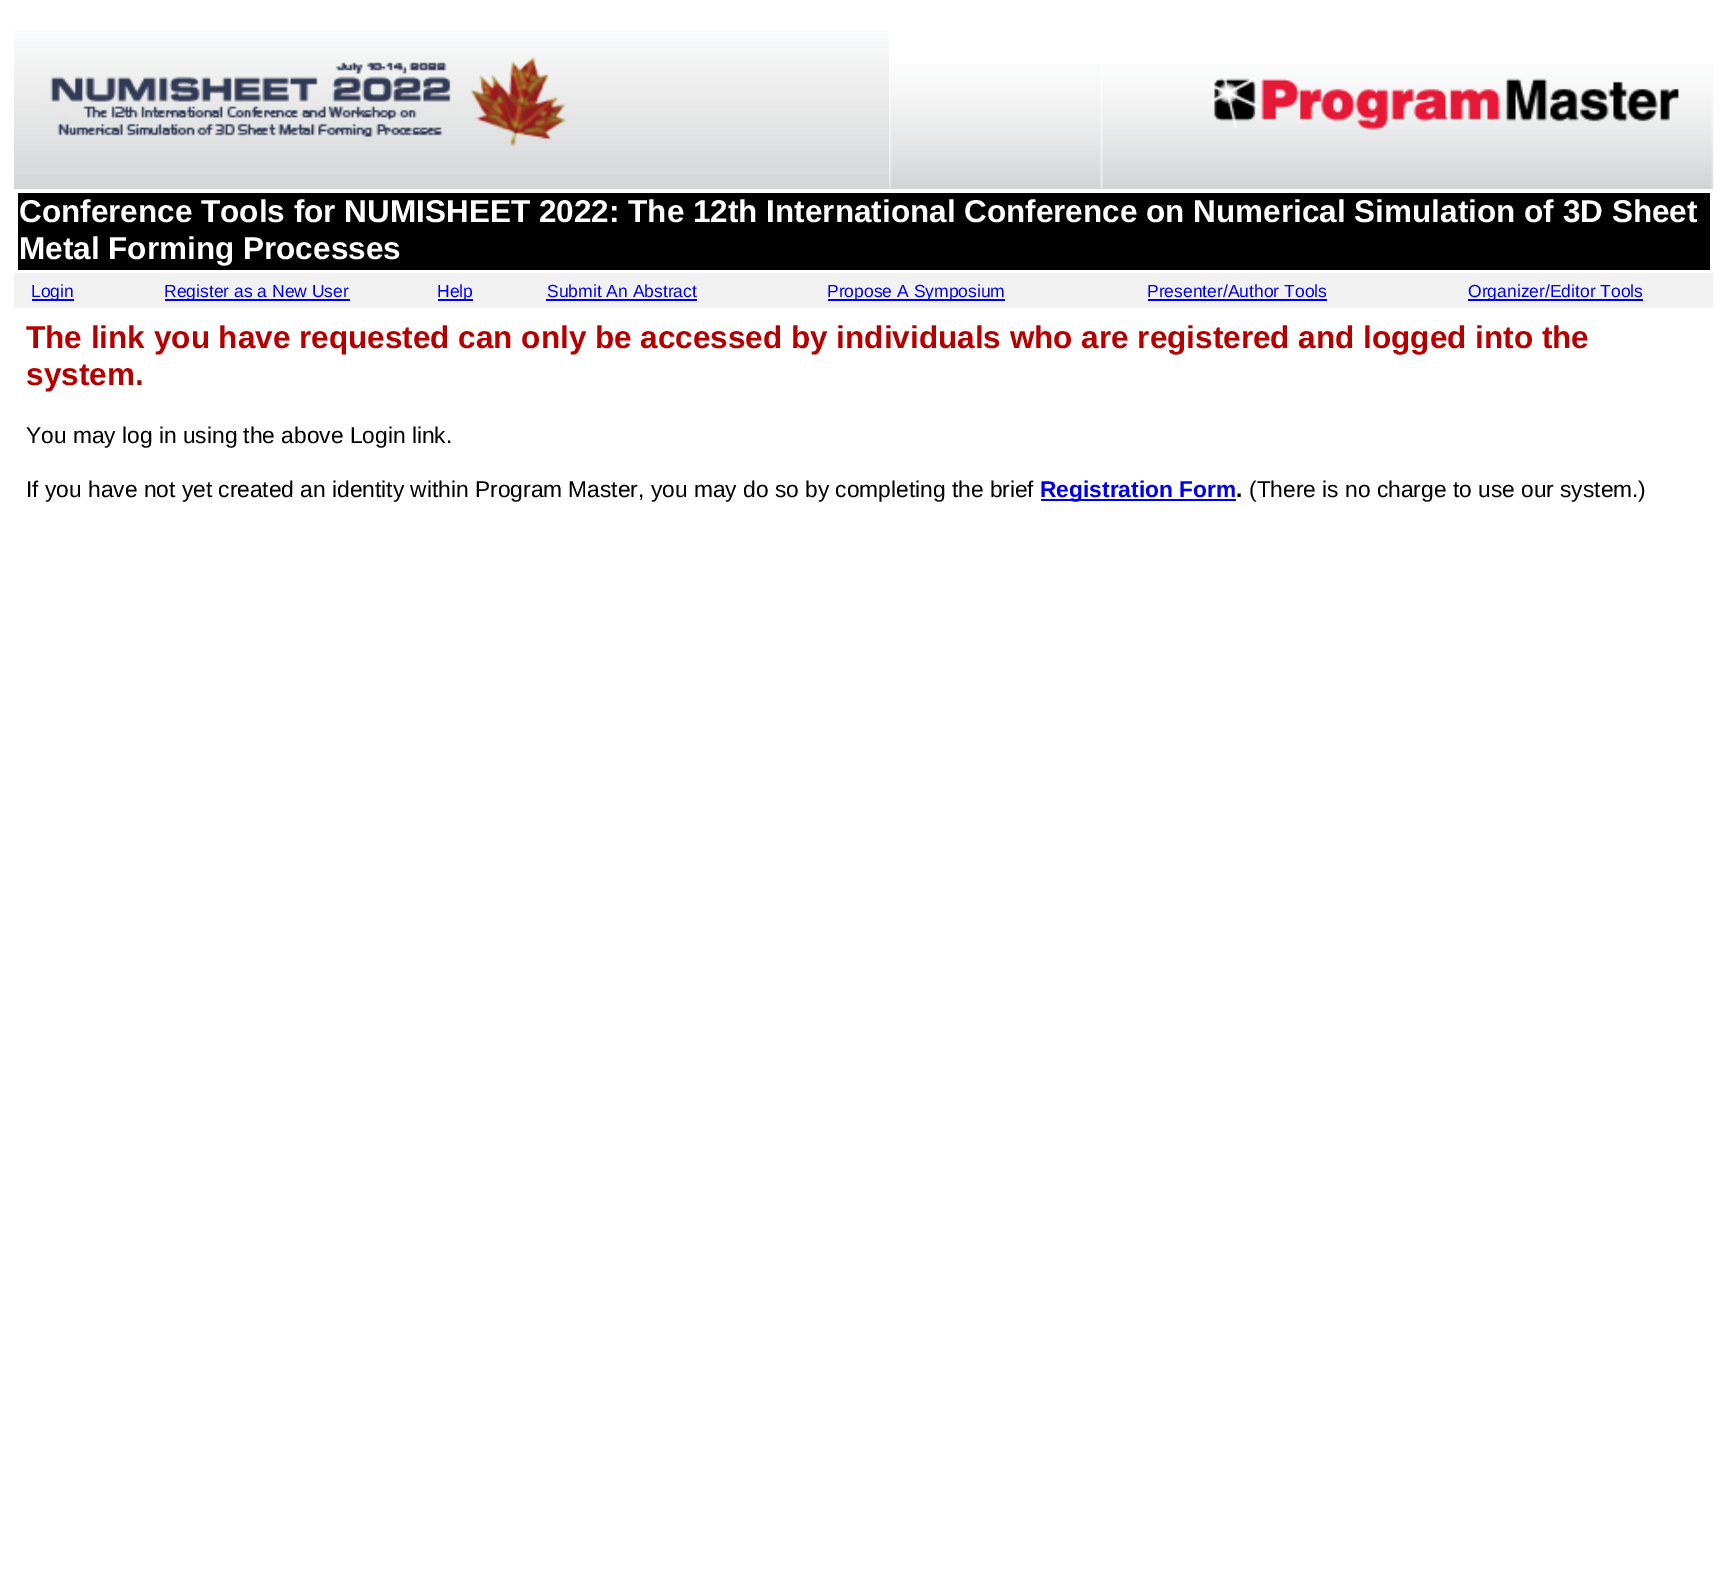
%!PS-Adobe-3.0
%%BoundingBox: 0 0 1726 1572
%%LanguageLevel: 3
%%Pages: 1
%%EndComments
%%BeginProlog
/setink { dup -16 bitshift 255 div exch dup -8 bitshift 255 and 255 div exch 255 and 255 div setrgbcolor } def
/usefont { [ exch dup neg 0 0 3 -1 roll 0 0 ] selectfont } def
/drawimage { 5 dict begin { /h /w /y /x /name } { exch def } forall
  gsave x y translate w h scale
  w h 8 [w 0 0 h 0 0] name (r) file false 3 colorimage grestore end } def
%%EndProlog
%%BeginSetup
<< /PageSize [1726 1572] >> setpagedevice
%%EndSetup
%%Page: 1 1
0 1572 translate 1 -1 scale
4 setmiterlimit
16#FFFFFF setink
0 0 1726 1572 rectfill
(img1.raw) 14 30 875 159 drawimage
(img2.raw) 889 64 212 125 drawimage
(img3.raw) 1101 64 613 125 drawimage
16#000000 setink
18 193 1692 77 rectfill
/LiberationSans-Bold 31.5 usefont
16#FFFFFF setink
19 222 moveto (Conference Tools for NUMISHEET 2022: The 12th International Conference on Numerical Simulation of 3D Sheet) show
19 259 moveto (Metal Forming Processes) show
16#F1F1F1 setink
14 273 1699 35 rectfill
16#0000EE setink
32 299 42 2 rectfill
/LiberationSans-Regular 17.5 usefont
31 297 moveto (Login) show
165 299 185 2 rectfill
164 297 moveto (Register as a New User) show
438 299 35 2 rectfill
437 297 moveto (Help) show
547 297 moveto (Submit An Abstract) show
546 299 151 2 rectfill
828 299 177 2 rectfill
827 297 moveto (Propose A Symposium) show
1147 297 moveto (Presenter/Author Tools) show
1148 299 179 2 rectfill
1468 299 175 2 rectfill
1468 297 moveto (Organizer/Editor Tools) show
/LiberationSans-Bold 31.5 usefont
16#B60000 setink
26 348 moveto (The link you have requested can only be accessed by individuals who are registered and logged into the) show
26 385 moveto (system.) show
/LiberationSans-Regular 22.75 usefont
16#000000 setink
26 443 moveto (You may log in using the above Login link.) show
26 497 moveto (If you have not yet created an identity within Program Master, you may do so by completing the brief) show
16#0000EE setink
1041 499 195 2 rectfill
/LiberationSans-Bold 22.75 usefont
1040 497 moveto (Registration Form) show
16#000000 setink
1236 497 moveto (.) show
/LiberationSans-Regular 22.75 usefont
1249 497 moveto (\(There is no charge to use our system.\)) show
showpage
%%EOF
